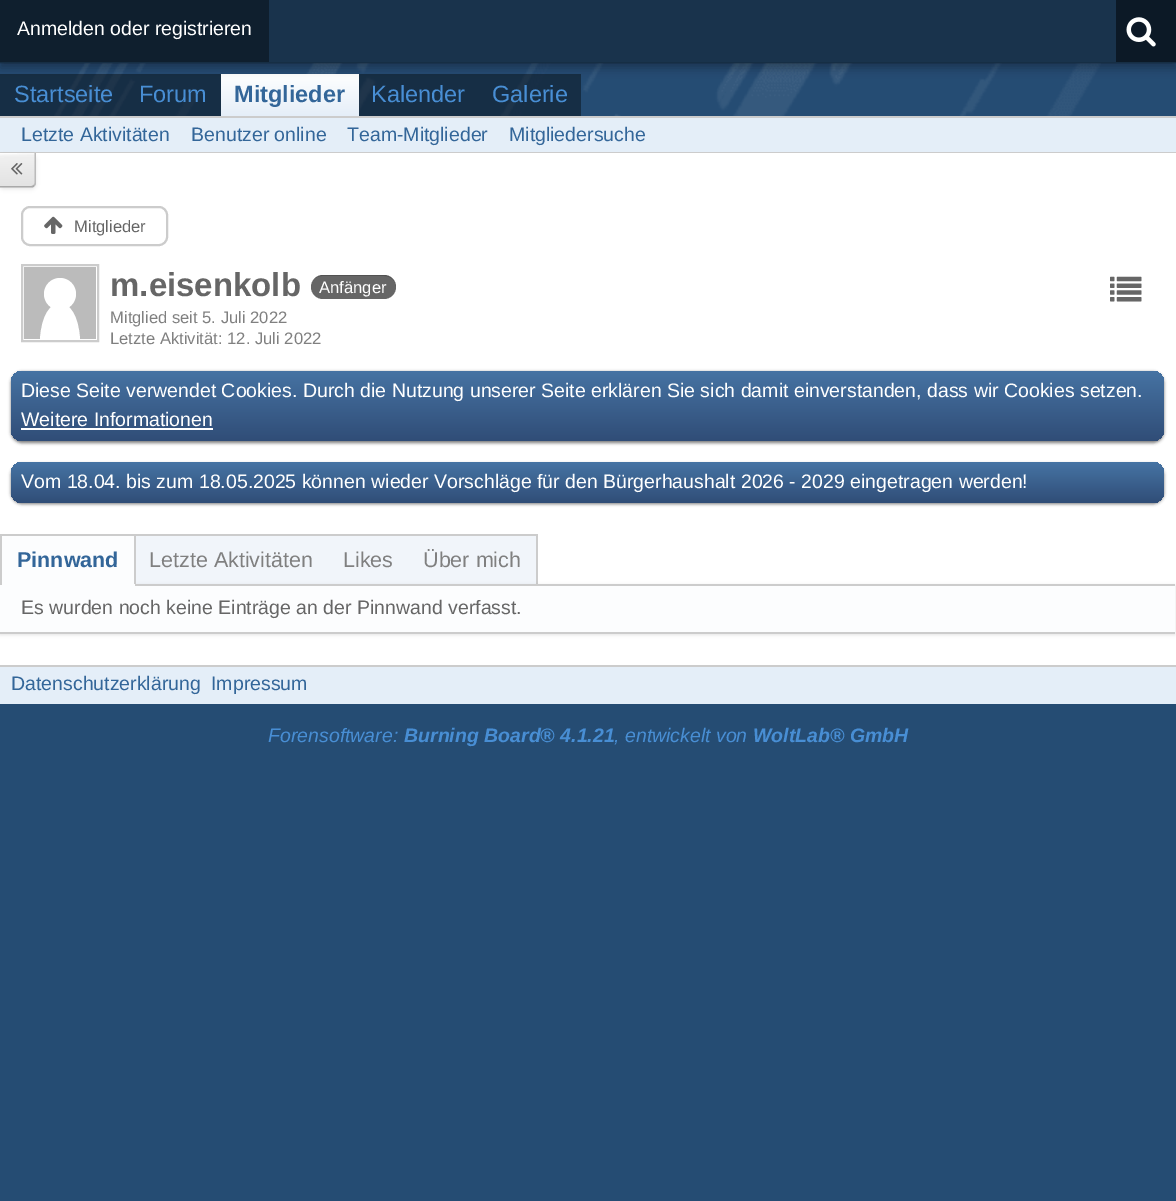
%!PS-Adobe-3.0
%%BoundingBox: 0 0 1176 1201
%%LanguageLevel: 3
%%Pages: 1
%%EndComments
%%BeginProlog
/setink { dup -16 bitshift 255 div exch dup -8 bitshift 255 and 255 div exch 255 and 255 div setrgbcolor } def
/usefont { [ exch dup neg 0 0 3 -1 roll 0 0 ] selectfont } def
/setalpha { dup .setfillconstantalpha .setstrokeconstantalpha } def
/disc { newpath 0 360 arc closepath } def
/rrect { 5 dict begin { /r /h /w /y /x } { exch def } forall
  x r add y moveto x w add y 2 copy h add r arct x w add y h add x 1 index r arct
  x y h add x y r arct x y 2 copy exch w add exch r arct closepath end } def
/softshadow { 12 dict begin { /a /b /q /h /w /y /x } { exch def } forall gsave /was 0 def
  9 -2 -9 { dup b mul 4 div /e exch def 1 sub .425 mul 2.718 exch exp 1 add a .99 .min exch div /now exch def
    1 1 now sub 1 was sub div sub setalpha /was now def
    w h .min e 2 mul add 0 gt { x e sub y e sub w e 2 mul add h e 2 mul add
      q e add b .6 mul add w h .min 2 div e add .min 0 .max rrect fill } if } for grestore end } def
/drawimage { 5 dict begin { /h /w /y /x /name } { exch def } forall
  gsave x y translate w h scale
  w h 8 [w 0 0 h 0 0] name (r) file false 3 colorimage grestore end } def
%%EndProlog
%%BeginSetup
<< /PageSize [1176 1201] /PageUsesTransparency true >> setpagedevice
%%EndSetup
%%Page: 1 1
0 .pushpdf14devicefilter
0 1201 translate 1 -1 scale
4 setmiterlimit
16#254C73 setink
0 0 1176 1201 rectfill
(img1.raw) 54 63 1047 53 drawimage
0.4 setalpha
16#000000 setink
0 74 581 42 rectfill
1 setalpha
gsave 221 74 moveto 359 74 lineto 359 116 lineto 221 116 lineto closepath clip newpath
<< /ShadingType 2 /ColorSpace /DeviceRGB /Coords [290 73 290 117] /Extend [true true] /Function << /FunctionType 2 /Domain [0 1] /C0 [1 1 1] /C1 [0.894 0.933 0.973] /N 1 >> >> shfill grestore
0 5 1176 63 0 5 0.3 softshadow
[
    [0 0 1176 63 16#19334C]
] { aload pop setink rectfill } forall
0.1 setalpha
[
    [0 62 1176 2 16#000000]
] { aload pop setink rectfill } forall
1 setalpha
[
    [0 0 269 62 16#0F1F2E]
] { aload pop setink rectfill } forall
/LiberationSans-Regular 19.5 usefont
16#FFFFFF setink
17 35 moveto (Anmelden oder registrieren) show
16#0C1926 setink
1116 0 60 62 rectfill
(img2.raw) 1126 17 30 30 drawimage
/LiberationSans-Regular 23.5 usefont
16#488ED4 setink
14 102 moveto (Startseite) show
139 102 moveto (Forum) show
/LiberationSans-Bold 23.5 usefont
16#336699 setink
234 102 moveto (Mitglieder) show
/LiberationSans-Regular 23.5 usefont
16#488ED4 setink
371 102 moveto (Kalender) show
492 102 moveto (Galerie) show
[
    [0 118 1176 34 16#E4EEF8]
    [0 116 1176 2 16#CCCCCC]
    [0 152 1176 1 16#CCCCCC]
] { aload pop setink rectfill } forall
/LiberationSans-Regular 19.5 usefont
16#336699 setink
[
    [(Letzte Aktivitäten) 21 141]
    [(Benutzer online) 191 141]
    [(Team-Mitglieder) 347 141]
    [(Mitgliedersuche) 509 141]
] { aload pop moveto show } forall
16#FFFFFF setink
0 153 1176 512 rectfill
16#000000 setink
-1 155 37 34 5 2 0.1 softshadow
gsave -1 153 moveto 35 153 lineto 35 183 lineto 35 184.5 33.5 186 32 186 curveto -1 186 lineto closepath clip newpath
<< /ShadingType 2 /ColorSpace /DeviceRGB /Coords [16 153 17 186] /Extend [true true] /Function << /FunctionType 3 /Domain [0 1] /Functions [<< /FunctionType 2 /Domain [0 1] /C0 [0.992 0.992 0.992] /C1 [0.941 0.941 0.941] /N 1 >> << /FunctionType 2 /Domain [0 1] /C0 [0.941 0.941 0.941] /C1 [0.89 0.89 0.89] /N 1 >>] /Bounds [0.09] /Encode [0 1 0 1] >> >> shfill grestore
16#BBBBBB setink
36 153 moveto 34.5 153 lineto 34.5 183 lineto 34.5 184 34 184.5 33.5 185 curveto 34.5 186 lineto 35.5 185.5 36 184 36 183 curveto closepath fill
16#A9A9A9 setink
-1.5 186 moveto -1.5 187.5 lineto 31.5 187.5 lineto 33 187.5 34 187 34.5 186 curveto 33.5 185 lineto 33 185.5 32 186 31.5 186 curveto closepath fill
(img3.raw) 11 163 12 12 drawimage
16#CCCCCC setink
2 setlinewidth
22 207 145 38 8 rrect stroke
(img4.raw) 44 216 19 18 drawimage
/LiberationSans-Regular 16.6 usefont
16#666666 setink
74 232 moveto (Mitglieder) show
16#CCCCCC setink
22 265 76 76 rectstroke
16#BBBBBB setink
24 267 72 72 rectfill
16#FFFFFF setink
40 339 moveto 43 291 77 291 80 339 curveto fill
60 294 16 disc fill
/LiberationSans-Bold 33 usefont
16#666666 setink
110 296 moveto (m.eisenkolb) show
311 275 85 24 12 rrect fill
0.2 setalpha
16#000000 setink
322 276 moveto 384 276 lineto 391 276 396 281 396 287 curveto 396 280 391 275 384 275 curveto 323 275 lineto 319 275 316 277 314 279 curveto 316 277 319 276 322 276 curveto closepath fill
/LiberationSans-Regular 16.6 usefont
1 setalpha
16#FFFFFF setink
319 293 moveto (Anfänger) show
(img5.raw) 1110 276 32 26 drawimage
16#808080 setink
110 323 moveto (Mitglied seit 5. Juli 2022) show
110 344 moveto (Letzte Aktivität: 12. Juli 2022) show
16#000000 setink
11 372 1153 71 11 1.5 0.5 softshadow
gsave 11 371 1153 70 11 rrect clip newpath
<< /ShadingType 2 /ColorSpace /DeviceRGB /Coords [587 370 587 441] /Extend [true true] /Function << /FunctionType 2 /Domain [0 1] /C0 [0.275 0.455 0.643] /C1 [0.188 0.302 0.467] /N 1 >> >> shfill grestore
/LiberationSans-Regular 19.5 usefont
16#FFFFFF setink
21 397 moveto (Diese Seite verwendet Cookies. Durch die Nutzung unserer Seite erklären Sie sich damit einverstanden, dass wir Cookies setzen.) show
21 426 moveto (Weitere Informationen) show
21 428 192 2 rectfill
16#000000 setink
11 464 1153 40 11 1.5 0.5 softshadow
gsave 11 462 1153 41 11 rrect clip newpath
<< /ShadingType 2 /ColorSpace /DeviceRGB /Coords [587 462 587 503] /Extend [true true] /Function << /FunctionType 2 /Domain [0 1] /C0 [0.275 0.455 0.643] /C1 [0.188 0.302 0.467] /N 1 >> >> shfill grestore
16#FFFFFF setink
21 488 moveto (Vom 18.04. bis zum 18.05.2025 können wieder Vorschläge für den Bürgerhaushalt 2026 - 2029 eingetragen werden!) show
[
    [136 536 400 48 16#F1F5FA]
    [136 534 401 2 16#CCCCCC]
    [536 534 2 51 16#CCCCCC]
] { aload pop setink rectfill } forall
16#000000 setink
0 585 1175 50 0 1.5 0.1 softshadow
[
    [2 536 132 48 16#FCFDFE]
    [0 534 135 2 16#CCCCCC]
    [135 584 1040 2 16#CCCCCC]
    [134 534 2 51 16#CCCCCC]
    [0 584 135 2 16#FCFDFE]
    [0 534 2 51 16#CCCCCC]
] { aload pop setink rectfill } forall
/LiberationSans-Bold 21.5 usefont
16#336699 setink
17 567 moveto (Pinnwand) show
/LiberationSans-Regular 21.5 usefont
16#808080 setink
[
    [(Letzte Aktivitäten) 149 567]
    [(Likes) 343 567]
    [(Über mich) 423 567]
] { aload pop moveto show } forall
16#FCFDFE setink
0 586 1175 46 rectfill
16#CCCCCC setink
0 632 1175 2 rectfill
/LiberationSans-Regular 19.5 usefont
16#666666 setink
21 614 moveto (Es wurden noch keine Einträge an der Pinnwand verfasst.) show
16#E4EEF8 setink
0 667 1176 37 rectfill
16#CCCCCC setink
0 665 1176 2 rectfill
16#336699 setink
11 690 moveto (Datenschutzerklärung) show
211 690 moveto (Impressum) show
/LiberationSans-Italic 19.5 usefont
16#488ED4 setink
268 742 moveto (Forensoftware:) show
/LiberationSans-BoldItalic 19.5 usefont
404 742 moveto (Burning Board® 4.1.21) show
/LiberationSans-Italic 19.5 usefont
614 742 moveto (, entwickelt von) show
/LiberationSans-BoldItalic 19.5 usefont
753 742 moveto (WoltLab® GmbH) show
.poppdf14devicefilter showpage
%%EOF
